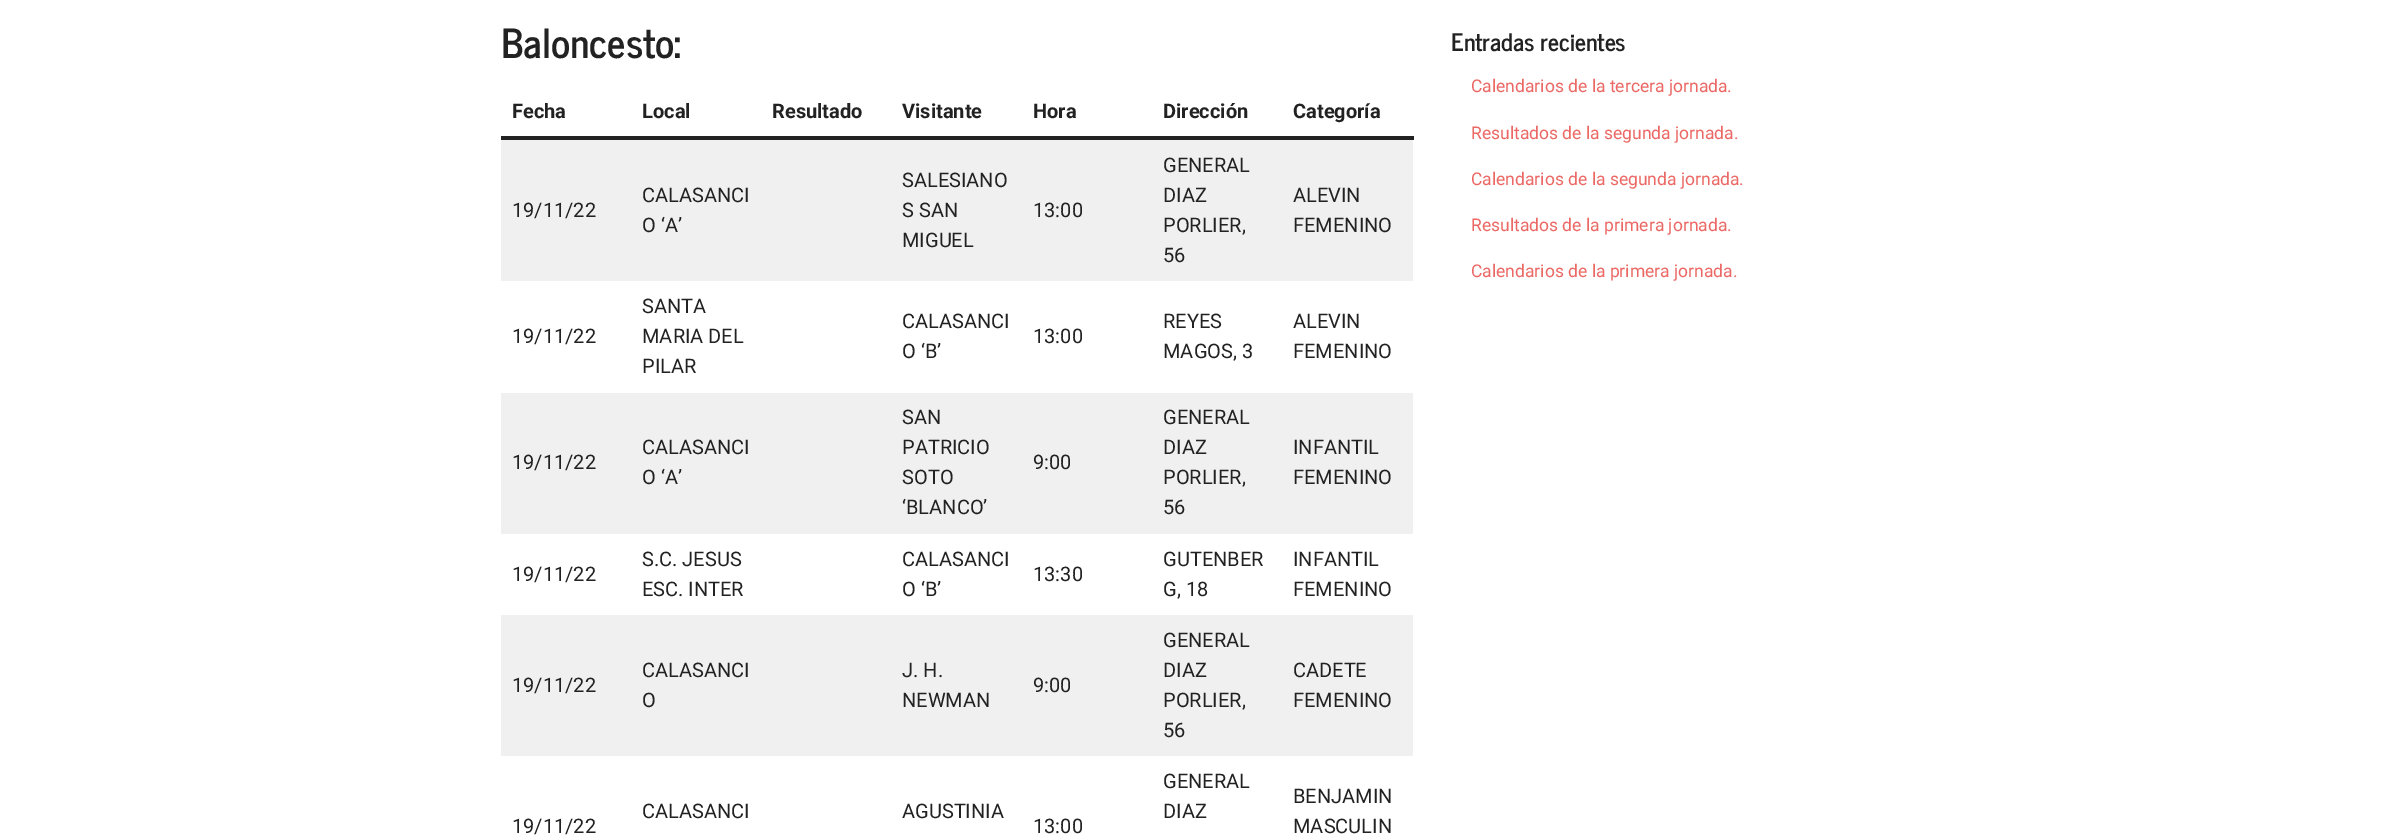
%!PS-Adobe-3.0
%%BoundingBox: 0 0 2388 838
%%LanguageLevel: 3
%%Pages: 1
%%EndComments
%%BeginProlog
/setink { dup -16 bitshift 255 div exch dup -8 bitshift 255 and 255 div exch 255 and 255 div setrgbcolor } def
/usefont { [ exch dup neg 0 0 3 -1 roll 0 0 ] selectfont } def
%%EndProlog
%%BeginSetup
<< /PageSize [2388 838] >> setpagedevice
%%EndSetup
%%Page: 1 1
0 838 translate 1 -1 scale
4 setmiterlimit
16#FFFFFF setink
0 0 2388 838 rectfill
/NewsCycle-Bold 40 usefont
16#222222 setink
501 58 moveto (Baloncesto:) show
501 136 913 4 rectfill
/Roboto-Bold 20 usefont
[
    [(Fecha) 512 118]
    [(Local) 642 118]
    [(Resultado) 772 118]
    [(Visitante) 902 118]
    [(Hora) 1033 118]
    [(Dirección) 1163 118]
    [(Categoría) 1293 118]
] { aload pop moveto show } forall
16#F0F0F0 setink
501 140 912 141 rectfill
/Roboto-Regular 20 usefont
16#222222 setink
[
    [(19/11/22) 512 217]
    [(CALASANCI) 642 202]
    [(O ‘A’) 642 232]
    [(SALESIANO) 902 187]
    [(S SAN) 902 217]
    [(MIGUEL) 902 247]
    [(13:00) 1033 217]
    [(GENERAL) 1163 172]
    [(DIAZ) 1163 202]
    [(PORLIER,) 1163 232]
    [(56) 1163 262]
    [(ALEVIN) 1293 202]
    [(FEMENINO) 1293 232]
    [(19/11/22) 512 343]
    [(SANTA) 642 313]
    [(MARIA DEL) 642 343]
    [(PILAR) 642 373]
    [(CALASANCI) 902 328]
    [(O ‘B’) 902 358]
    [(13:00) 1033 343]
    [(REYES) 1163 328]
    [(MAGOS, 3) 1163 358]
    [(ALEVIN) 1293 328]
    [(FEMENINO) 1293 358]
] { aload pop moveto show } forall
16#F0F0F0 setink
501 393 912 141 rectfill
16#222222 setink
[
    [(19/11/22) 512 469]
    [(CALASANCI) 642 454]
    [(O ‘A’) 642 484]
    [(SAN) 902 424]
    [(PATRICIO) 902 454]
    [(SOTO) 902 484]
    [(‘BLANCO’) 902 514]
    [(9:00) 1033 469]
    [(GENERAL) 1163 424]
    [(DIAZ) 1163 454]
    [(PORLIER,) 1163 484]
    [(56) 1163 514]
    [(INFANTIL) 1293 454]
    [(FEMENINO) 1293 484]
    [(19/11/22) 512 581]
    [(S.C. JESUS) 642 566]
    [(ESC. INTER) 642 596]
    [(CALASANCI) 902 566]
    [(O ‘B’) 902 596]
    [(13:30) 1033 581]
    [(GUTENBER) 1163 566]
    [(G, 18) 1163 596]
    [(INFANTIL) 1293 566]
    [(FEMENINO) 1293 596]
] { aload pop moveto show } forall
16#F0F0F0 setink
501 615 912 141 rectfill
16#222222 setink
[
    [(19/11/22) 512 692]
    [(CALASANCI) 642 677]
    [(O) 642 707]
    [(J. H.) 902 677]
    [(NEWMAN) 902 707]
    [(9:00) 1033 692]
    [(GENERAL) 1163 647]
    [(DIAZ) 1163 677]
    [(PORLIER,) 1163 707]
    [(56) 1163 737]
    [(CADETE) 1293 677]
    [(FEMENINO) 1293 707]
    [(CALASANCI) 642 818]
    [(AGUSTINIA) 902 818]
    [(GENERAL) 1163 788]
    [(DIAZ) 1163 818]
    [(BENJAMIN) 1293 803]
    [(MASCULIN) 1293 833]
    [(19/11/22) 512 833]
    [(13:00) 1033 833]
] { aload pop moveto show } forall
/NewsCycle-Bold 24 usefont
1451 51 moveto (Entradas recientes) show
/Roboto-Regular 17.5 usefont
16#EB6864 setink
[
    [(Calendarios de la tercera jornada.) 1471 92]
    [(Resultados de la segunda jornada.) 1471 139]
    [(Calendarios de la segunda jornada.) 1471 185]
    [(Resultados de la primera jornada.) 1471 231]
    [(Calendarios de la primera jornada.) 1471 277]
] { aload pop moveto show } forall
showpage
%%EOF
